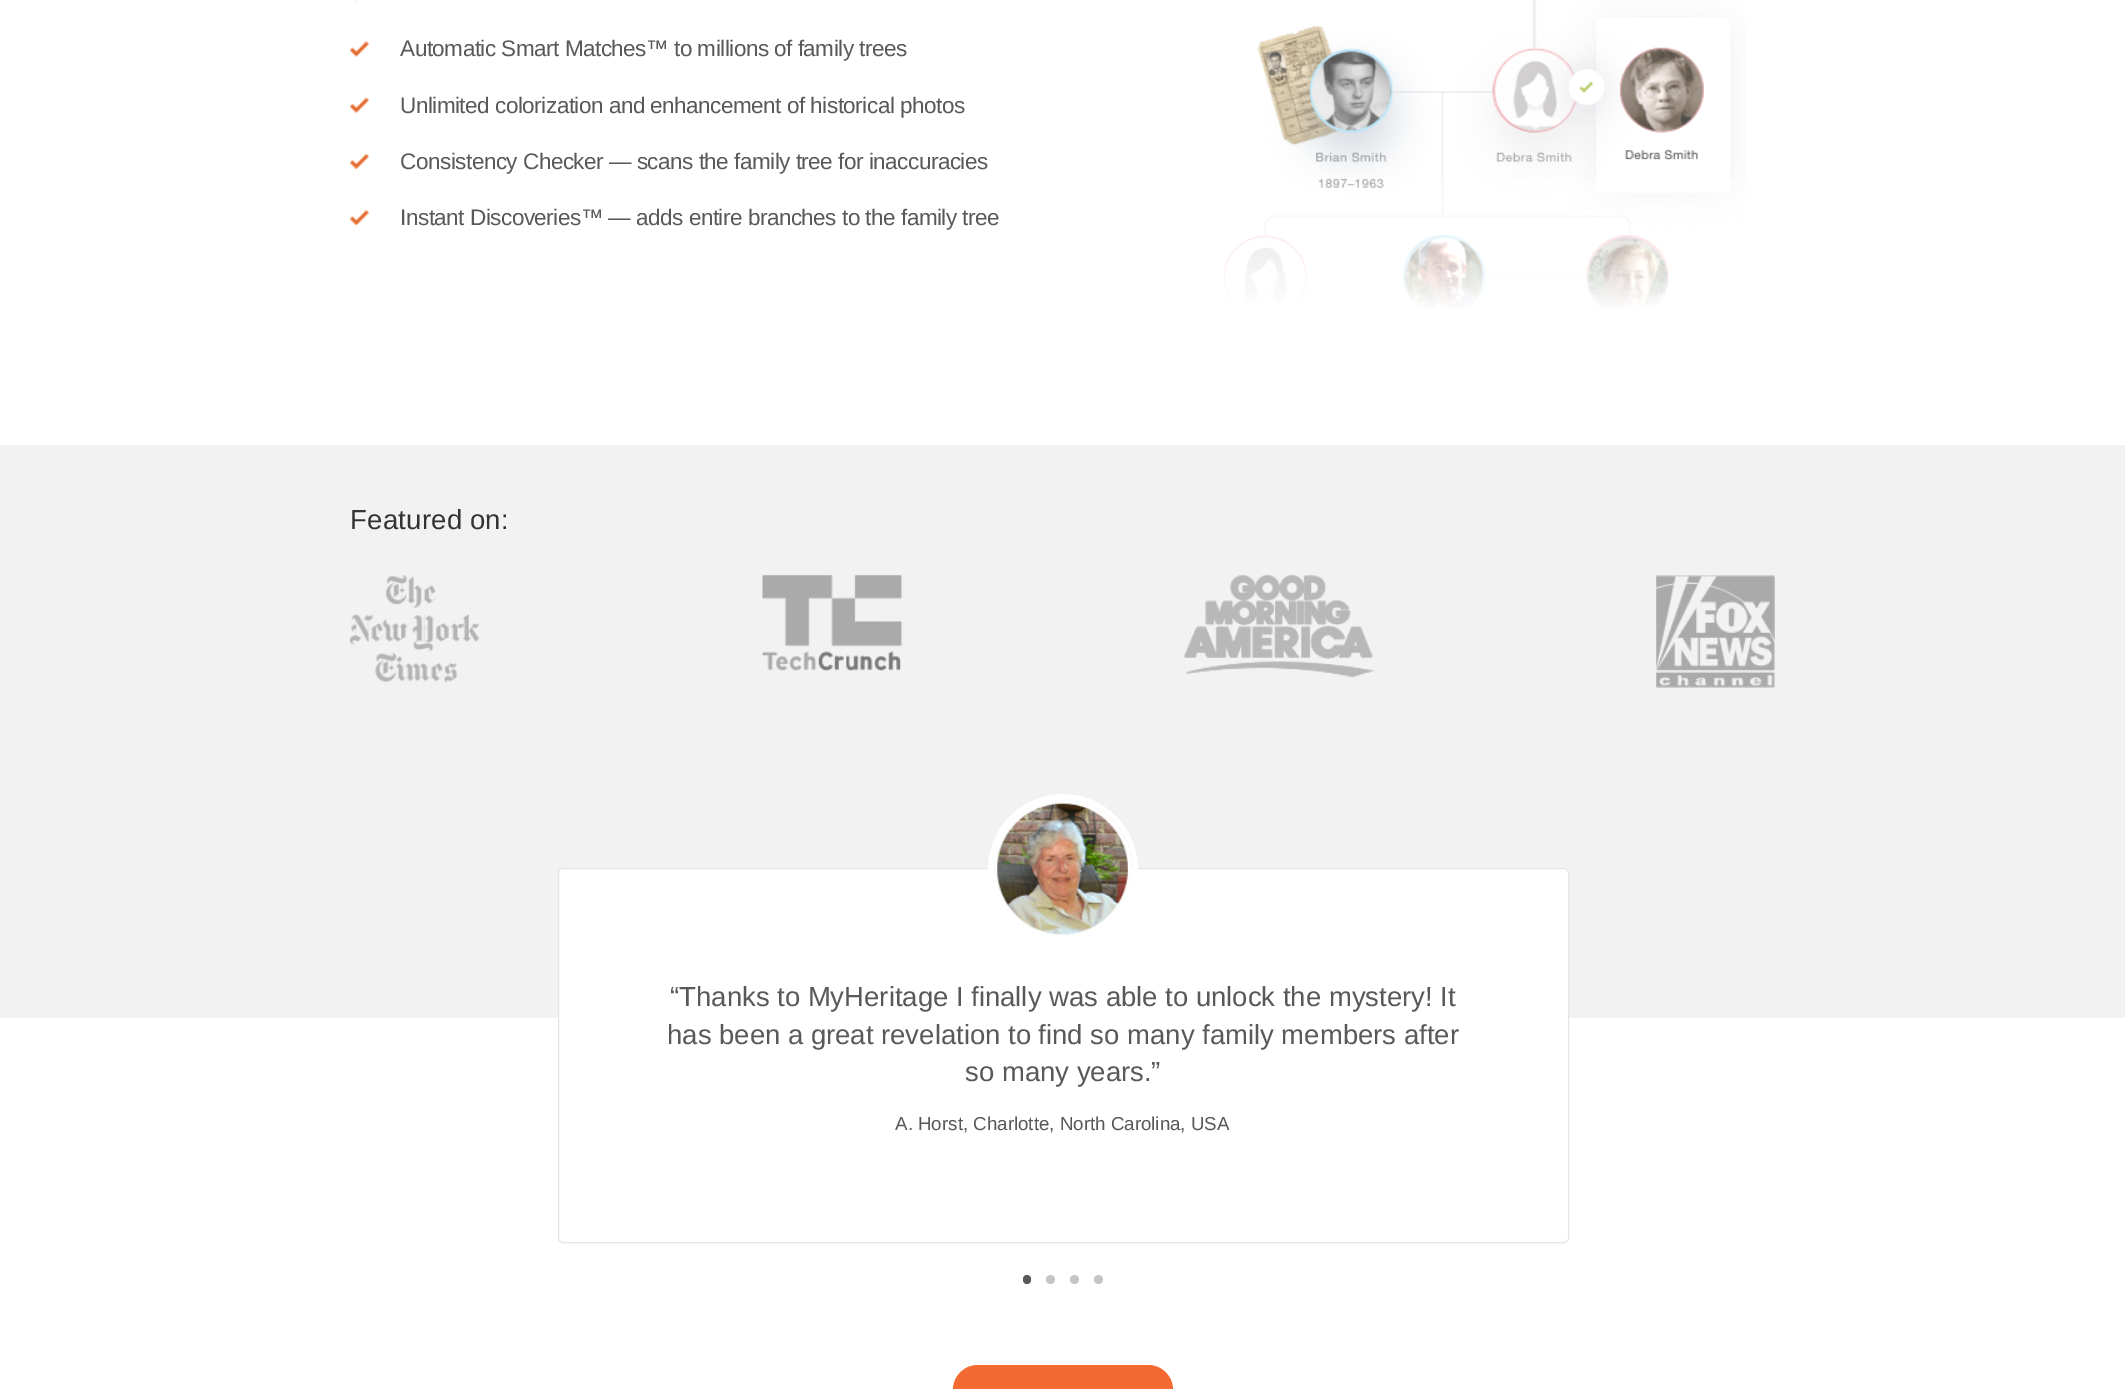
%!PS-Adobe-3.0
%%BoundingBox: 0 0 2125 1389
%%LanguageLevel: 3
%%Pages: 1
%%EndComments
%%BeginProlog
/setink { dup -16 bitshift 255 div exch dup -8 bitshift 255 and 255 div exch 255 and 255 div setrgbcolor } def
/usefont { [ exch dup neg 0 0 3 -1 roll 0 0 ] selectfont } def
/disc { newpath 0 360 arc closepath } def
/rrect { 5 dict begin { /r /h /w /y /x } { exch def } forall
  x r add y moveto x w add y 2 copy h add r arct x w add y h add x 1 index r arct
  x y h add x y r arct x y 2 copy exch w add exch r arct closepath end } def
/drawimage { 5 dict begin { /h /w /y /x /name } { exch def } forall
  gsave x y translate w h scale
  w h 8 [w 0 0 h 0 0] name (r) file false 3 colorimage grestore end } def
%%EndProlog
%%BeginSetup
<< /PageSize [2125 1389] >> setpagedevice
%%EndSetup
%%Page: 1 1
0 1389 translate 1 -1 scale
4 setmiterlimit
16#FFFFFF setink
0 0 2125 1389 rectfill
(img1.raw) 355 0 3 1 drawimage
(img2.raw) 350 41 19 16 drawimage
/LiberationSans-Regular 22.5 usefont
16#595959 setink
400 56 moveto -0.5 0 (Automatic Smart Matches™ to millions of family trees) ashow
(img3.raw) 350 97 19 16 drawimage
400 113 moveto -0.5 0 (Unlimited colorization and enhancement of historical photos) ashow
(img4.raw) 350 154 19 15 drawimage
400 169 moveto -0.5 0 (Consistency Checker — scans the family tree for inaccuracies) ashow
(img5.raw) 350 210 19 16 drawimage
400 225 moveto -0.5 0 (Instant Discoveries™ — adds entire branches to the family tree) ashow
(img6.raw) 1224 0 522 308 drawimage
16#F2F2F2 setink
0 445 2125 573 rectfill
/LiberationSans-Regular 27.5 usefont
16#333333 setink
350 529 moveto 0.25 0 (Featured on:) ashow
(img7.raw) 350 575 130 108 drawimage
(img8.raw) 762 575 141 96 drawimage
(img9.raw) 1183 575 192 103 drawimage
(img10.raw) 1656 575 119 113 drawimage
16#FFFFFF setink
558.5 868.5 1010 374 4.5 rrect gsave fill grestore
16#E5E5E5 setink
stroke
16#FFFFFF setink
5 setlinewidth
1063 869 72.5 disc stroke
(img11.raw) 993 799 140 137 drawimage
16#595959 setink
[
    [(“Thanks to MyHeritage I finally was able to unlock the mystery! It) 670 1006]
    [(has been a great revelation to find so many family members after) 667 1044]
    [(so many years.”) 965 1081]
] { aload pop moveto show } forall
/LiberationSans-Regular 18.75 usefont
895 1130 moveto (A. Horst, Charlotte, North Carolina, USA) show
1023 1275 8 9 4 rrect fill
16#C5C5C5 setink
1050.5 1279.5 4.5 disc fill
1074.5 1279.5 4.5 disc fill
1098.5 1279.5 4.5 disc fill
16#F56932 setink
953 1365 220 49 25 rrect fill
showpage
%%EOF
